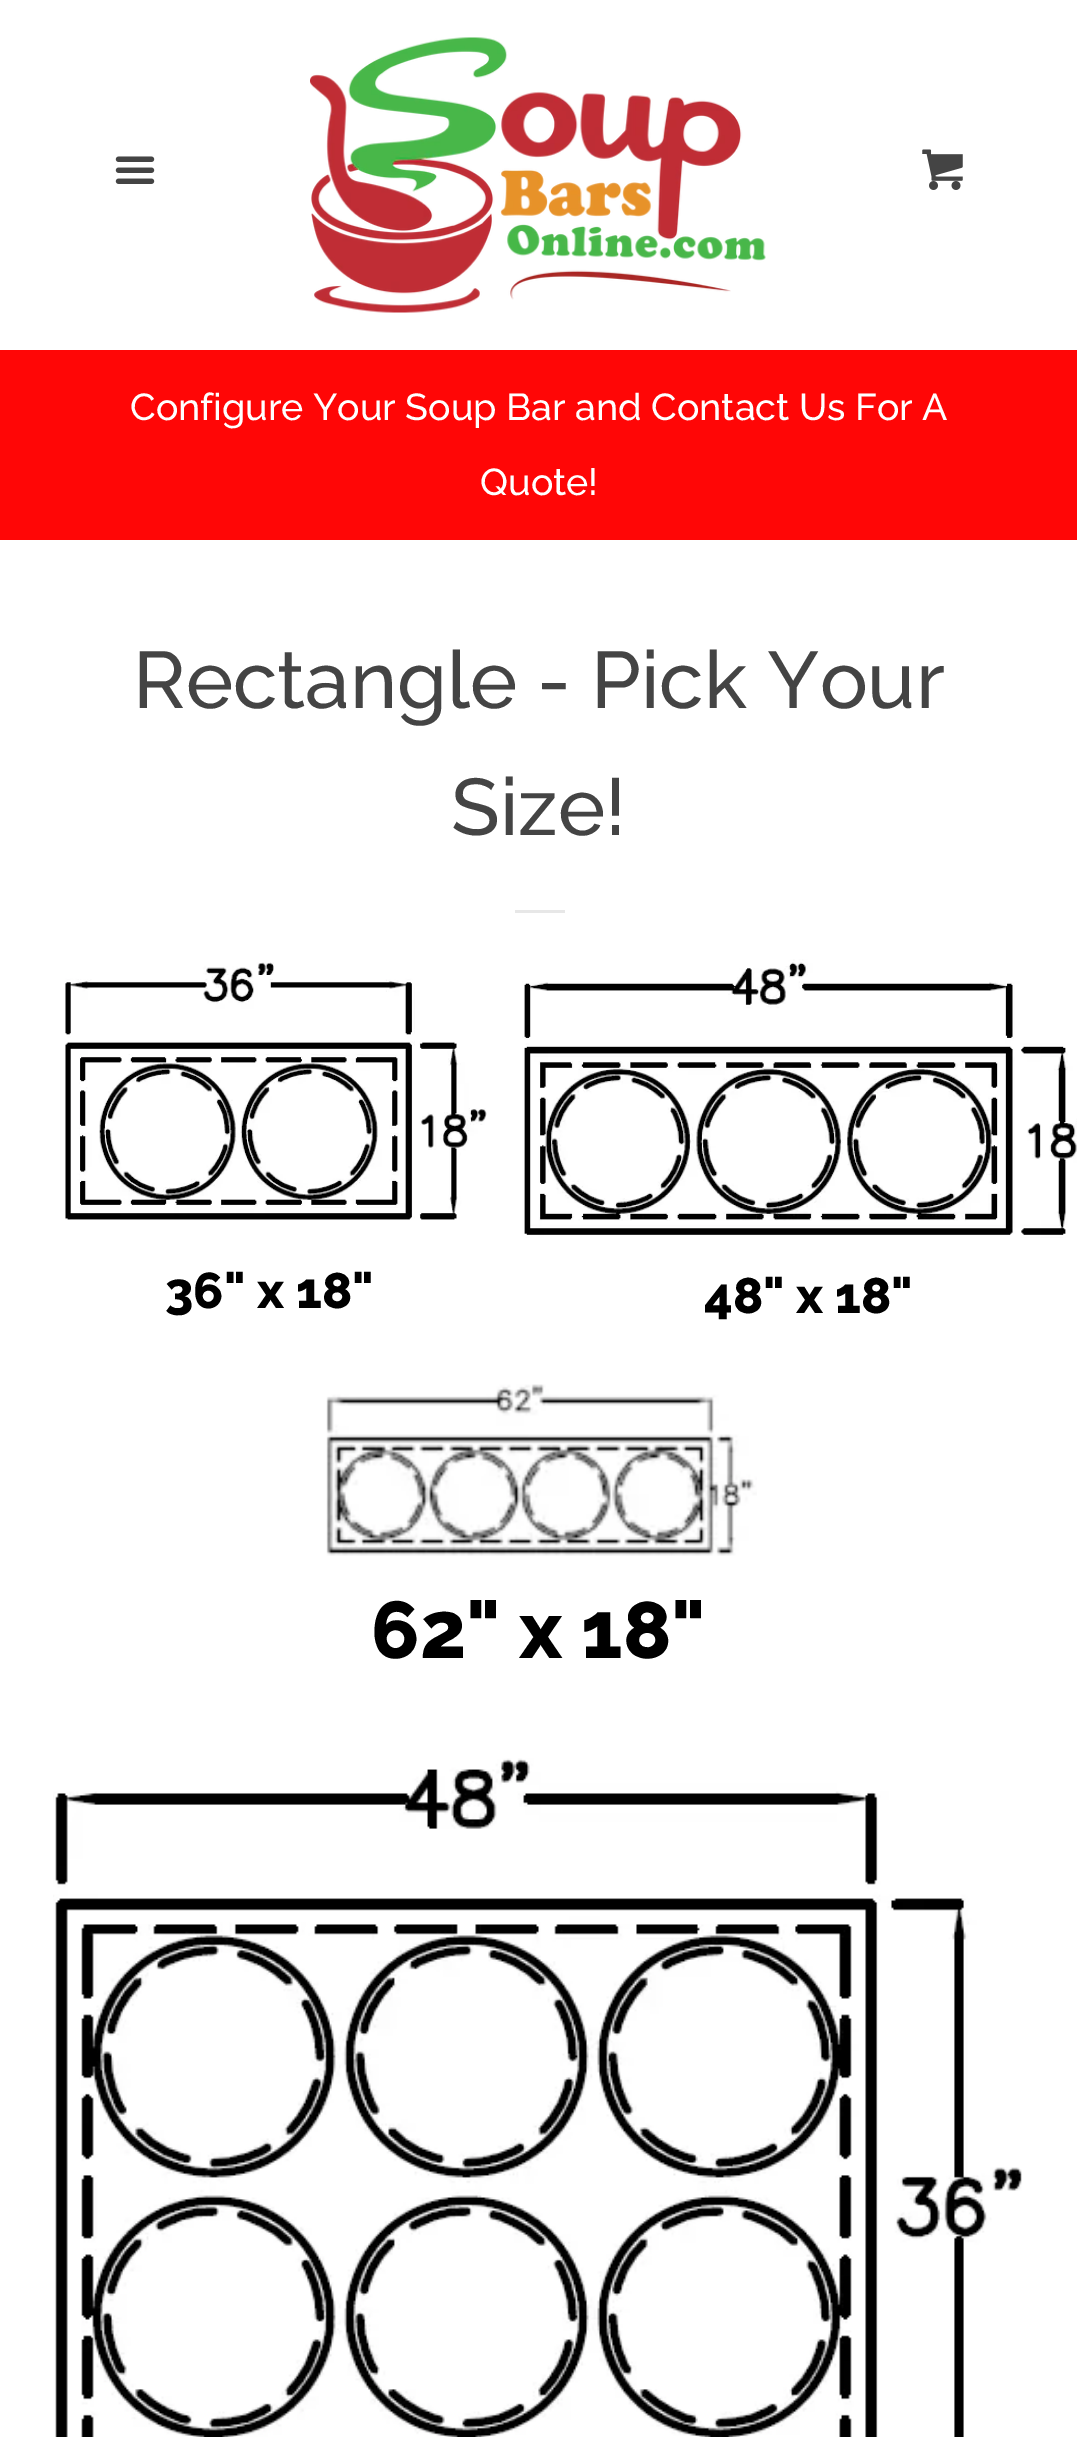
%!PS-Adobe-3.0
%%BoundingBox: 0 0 1077 2437
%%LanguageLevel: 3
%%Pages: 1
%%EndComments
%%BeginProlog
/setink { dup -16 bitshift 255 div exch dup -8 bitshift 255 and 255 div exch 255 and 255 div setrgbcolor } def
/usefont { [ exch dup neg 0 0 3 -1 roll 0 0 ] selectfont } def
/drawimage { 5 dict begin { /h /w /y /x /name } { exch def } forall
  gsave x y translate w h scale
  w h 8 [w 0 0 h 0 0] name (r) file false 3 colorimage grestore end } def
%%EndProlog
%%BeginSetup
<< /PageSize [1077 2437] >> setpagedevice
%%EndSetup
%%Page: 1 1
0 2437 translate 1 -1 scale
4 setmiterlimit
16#FFFFFF setink
0 0 1077 2437 rectfill
(img1.raw) 115 156 40 28 drawimage
(img2.raw) 310 37 456 276 drawimage
(img3.raw) 922 149 41 41 drawimage
16#FF0606 setink
0 350 1077 190 rectfill
/Raleway-Medium 37.5 usefont
16#FFFFFF setink
130 420 moveto (Configure Your Soup Bar and Contact Us For A) show
480 495 moveto (Quote!) show
/Raleway-Medium 80 usefont
16#444444 setink
133 708 moveto (Rectangle - Pick Your) show
451 835 moveto (Size!) show
16#E7E7E7 setink
515 910 50 3 rectfill
(img4.raw) 65 962 422 258 drawimage
/Raleway-ExtraBold 50 usefont
16#000000 setink
165 1308 moveto (36" x 18") show
(img5.raw) 522 959 555 279 drawimage
704 1313 moveto (48" x 18") show
(img6.raw) 326 1384 431 172 drawimage
/Raleway-ExtraBold 80 usefont
371 1658 moveto (62" x 18") show
(img7.raw) 53 1758 969 679 drawimage
showpage
%%EOF
